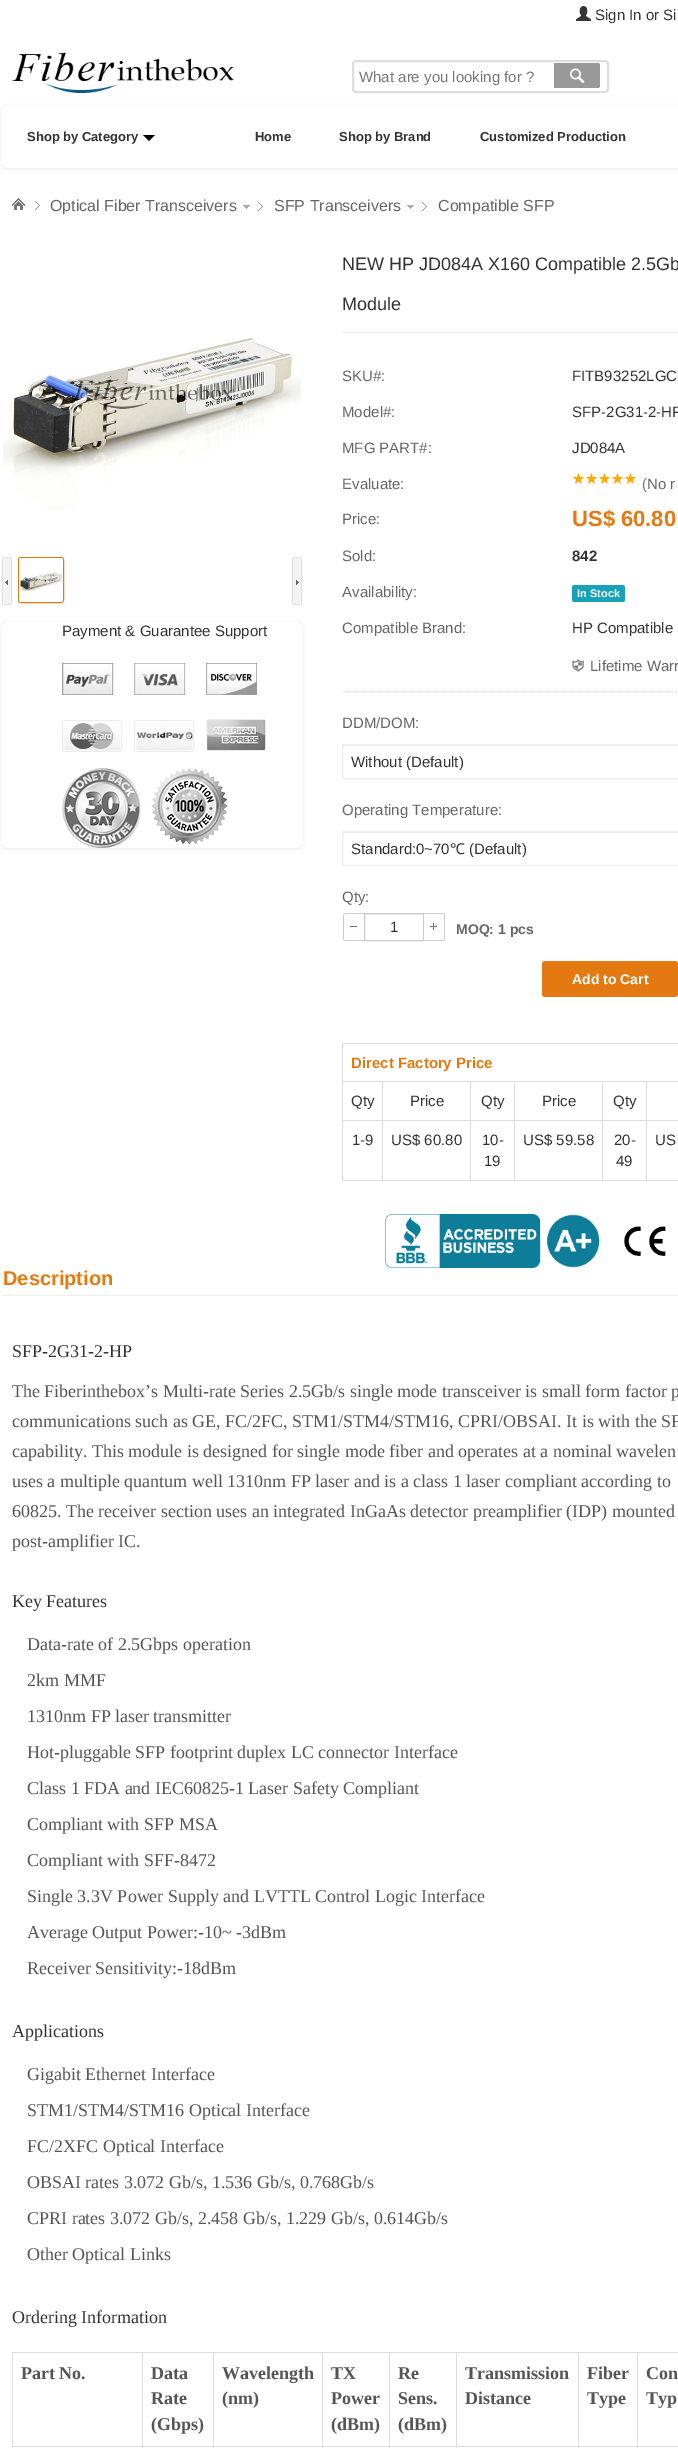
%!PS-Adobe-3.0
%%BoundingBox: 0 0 678 2448
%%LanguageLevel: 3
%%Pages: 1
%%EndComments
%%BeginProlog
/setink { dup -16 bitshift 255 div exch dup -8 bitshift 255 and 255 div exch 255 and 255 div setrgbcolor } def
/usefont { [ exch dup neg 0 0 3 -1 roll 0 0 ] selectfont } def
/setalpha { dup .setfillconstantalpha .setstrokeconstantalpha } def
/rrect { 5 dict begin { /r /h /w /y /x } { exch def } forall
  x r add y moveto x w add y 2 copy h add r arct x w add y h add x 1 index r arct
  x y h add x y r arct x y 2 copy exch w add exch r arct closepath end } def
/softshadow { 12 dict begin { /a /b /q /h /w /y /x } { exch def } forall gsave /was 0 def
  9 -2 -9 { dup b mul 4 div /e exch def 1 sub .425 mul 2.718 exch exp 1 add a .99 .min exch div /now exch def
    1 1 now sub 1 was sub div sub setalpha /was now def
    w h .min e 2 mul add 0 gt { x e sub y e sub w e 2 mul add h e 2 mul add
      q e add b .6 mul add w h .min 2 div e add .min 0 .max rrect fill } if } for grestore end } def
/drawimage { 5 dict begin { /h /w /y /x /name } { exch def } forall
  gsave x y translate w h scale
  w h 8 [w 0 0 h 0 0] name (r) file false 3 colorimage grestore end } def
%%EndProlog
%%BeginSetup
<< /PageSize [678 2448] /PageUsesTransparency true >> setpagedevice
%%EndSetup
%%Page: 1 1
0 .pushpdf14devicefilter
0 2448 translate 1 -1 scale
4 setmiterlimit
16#FFFFFF setink
0 0 678 2448 rectfill
(img1.raw) 576 6 15 15 drawimage
/LiberationSans-Regular 15 usefont
16#333333 setink
595 20 moveto (Sign In or Si) show
(img2.raw) 12 52 222 41 drawimage
16#DEDEDE setink
2 setlinewidth
353 61 255 31 3 rrect stroke
16#777777 setink
359 82 moveto (What are you looking for ?) show
16#999999 setink
554 63 moveto 598 63 lineto 599 63 600 64 600 65 curveto 600 86 lineto 600 87 599 88 598 88 curveto 554 88 lineto closepath fill
(img3.raw) 570 68 15 15 drawimage
gsave
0 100 moveto 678 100 lineto 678 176 lineto 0 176 lineto closepath 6 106 moveto 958 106 lineto 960 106 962 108 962 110 curveto 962 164 lineto 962 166 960 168 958 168 curveto 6 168 lineto 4 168 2 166 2 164 curveto 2 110 lineto 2 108 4 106 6 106 curveto closepath eoclip newpath
16#000000 setink
2 107 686 62 4 2 0.07 softshadow
grestore
/LiberationSans-Bold 13 usefont
16#333333 setink
27 141 moveto (Shop by Category) show
16#000000 setink
143 135 moveto 155 135 lineto 149 141 lineto closepath fill
16#333333 setink
[
    [(Home) 255 141]
    [(Shop by Brand) 339 141]
    [(Customized Production) 480 141]
] { aload pop moveto show } forall
(img4.raw) 35 201 5 9 drawimage
(img5.raw) 12 198 13 12 drawimage
(img4.raw) 258 202 5 9 drawimage
(img6.raw) 243 205 7 4 drawimage
/LiberationSans-Regular 16 usefont
16#666666 setink
50 211 moveto (Optical Fiber Transceivers) show
(img7.raw) 422 202 6 9 drawimage
(img8.raw) 407 205 8 4 drawimage
274 211 moveto (SFP Transceivers) show
438 211 moveto (Compatible SFP) show
(img9.raw) 3 337 298 173 drawimage
(img10.raw) 2 557 10 48 drawimage
16#E47911 setink
1 setlinewidth
18.5 557.5 45 45 2.5 rrect stroke
(img11.raw) 19 558 44 44 drawimage
(img12.raw) 292 557 10 48 drawimage
gsave
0 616 moveto 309 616 lineto 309 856 lineto 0 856 lineto closepath 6 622 moveto 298 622 lineto 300 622 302 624 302 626 curveto 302 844 lineto 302 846 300 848 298 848 curveto 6 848 lineto 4 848 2 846 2 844 curveto 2 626 lineto 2 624 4 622 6 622 curveto closepath eoclip newpath
16#000000 setink
2 623 300 226 4 2 0.07 softshadow
grestore
/LiberationSans-Regular 15 usefont
16#333333 setink
62 636 moveto (Payment & Guarantee Support) show
(img13.raw) 62 663 204 185 drawimage
16#EEEEEE setink
342 332 336 1 rectfill
/LiberationSans-Regular 18 usefont
16#333333 setink
342 270 moveto (NEW HP JD084A X160 Compatible 2.5Gb) show
342 310 moveto (Module) show
/LiberationSans-Regular 15 usefont
16#666666 setink
342 381 moveto (SKU#:) show
16#333333 setink
572 381 moveto (FITB93252LGC) show
16#666666 setink
342 417 moveto (Model#:) show
16#333333 setink
572 417 moveto (SFP-2G31-2-HP) show
16#666666 setink
342 453 moveto (MFG PART#:) show
16#333333 setink
572 453 moveto (JD084A) show
16#666666 setink
342 489 moveto (Evaluate:) show
(img14.raw) 573 473 64 11 drawimage
16#777777 setink
642 489 moveto (\() show
16#666666 setink
647 489 moveto (No r) show
342 524 moveto (Price:) show
/LiberationSans-Bold 22 usefont
16#E47911 setink
572 526 moveto (US$ 60.80) show
/LiberationSans-Regular 15 usefont
16#666666 setink
342 561 moveto (Sold:) show
/LiberationSans-Bold 15 usefont
16#333333 setink
572 561 moveto (842) show
/LiberationSans-Regular 15 usefont
16#666666 setink
342 597 moveto (Availability:) show
16#17A2B8 setink
572 585 53 17 2.5 rrect fill
/LiberationSans-Bold 11 usefont
16#FFFFFF setink
577 597 moveto (In Stock) show
/LiberationSans-Regular 15 usefont
16#666666 setink
342 633 moveto (Compatible Brand:) show
16#333333 setink
572 633 moveto (HP Compatible) show
(img15.raw) 572 659 12 13 drawimage
16#666666 setink
590 671 moveto (Lifetime Warr) show
16#DEDEDE setink
[1 1] 0 setdash
342 691.5 moveto 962 691.5 lineto stroke
16#666666 setink
342 728 moveto (DDM/DOM:) show
16#ECECEC setink
344 746 moveto 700 746 lineto 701 746 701 746 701 747 curveto 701 745 lineto 522 745 lineto 344 745 lineto 343 746 lineto 343 747 lineto 343 746 343 746 344 746 curveto closepath fill
16#EEEEEE setink
[] 0 setdash
342.5 744.5 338 34 1.5 rrect stroke
16#333333 setink
351 767 moveto (Without \(Default\)) show
16#666666 setink
342 815 moveto (Operating Temperature:) show
16#ECECEC setink
344 833 moveto 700 833 lineto 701 833 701 833 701 834 curveto 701 832 lineto 522 832 lineto 344 832 lineto 343 833 lineto 343 834 lineto 343 833 343 833 344 833 curveto closepath fill
16#EEEEEE setink
342.5 831.5 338 34 1.5 rrect stroke
16#333333 setink
351 854 moveto (Standard:0~70) show
/NotoSans-Regular 15 usefont
450 854 moveto (℃) show
/LiberationSans-Regular 15 usefont
469 854 moveto (\(Default\)) show
16#666666 setink
342 902 moveto (Qty:) show
(img16.raw) 343 913 21 28 drawimage
16#ECECEC setink
365 914 58 1 rectfill
16#CCCCCC setink
364.5 913.5 59 27 rectstroke
16#333333 setink
390 932 moveto (1) show
(img17.raw) 424 913 21 28 drawimage
/LiberationSans-Bold 14 usefont
16#666666 setink
456 934 moveto (MOQ: 1 pcs) show
16#E47911 setink
542 961 136 36 3 rrect fill
16#FFFFFF setink
572 984 moveto (Add to Cart) show
[
    [342 1043 336 1 16#DDDDDD]
    [646 1081 32 1 16#DDDDDD]
    [646 1120 32 1 16#DDDDDD]
    [646 1180 32 1 16#DDDDDD]
    [646 1120 1 61 16#DDDDDD]
    [602 1120 45 1 16#DDDDDD]
    [646 1081 1 40 16#DDDDDD]
    [602 1081 45 1 16#DDDDDD]
    [602 1180 45 1 16#DDDDDD]
    [602 1120 1 61 16#DDDDDD]
    [514 1120 89 1 16#DDDDDD]
    [602 1081 1 40 16#DDDDDD]
    [514 1081 89 1 16#DDDDDD]
    [514 1180 89 1 16#DDDDDD]
    [514 1120 1 61 16#DDDDDD]
    [470 1120 45 1 16#DDDDDD]
    [514 1081 1 40 16#DDDDDD]
    [470 1081 45 1 16#DDDDDD]
    [470 1180 45 1 16#DDDDDD]
    [470 1120 1 61 16#DDDDDD]
    [382 1120 89 1 16#DDDDDD]
    [470 1081 1 40 16#DDDDDD]
    [382 1081 89 1 16#DDDDDD]
    [382 1180 89 1 16#DDDDDD]
    [382 1120 1 61 16#DDDDDD]
    [342 1120 41 1 16#DDDDDD]
    [382 1081 1 40 16#DDDDDD]
    [342 1081 41 1 16#DDDDDD]
    [342 1180 41 1 16#DDDDDD]
    [342 1120 1 61 16#DDDDDD]
    [342 1081 1 40 16#DDDDDD]
    [342 1043 1 39 16#DDDDDD]
] { aload pop setink rectfill } forall
/LiberationSans-Bold 15 usefont
16#E47911 setink
351 1068 moveto (Direct Factory Price) show
/LiberationSans-Regular 15 usefont
16#333333 setink
[
    [(Qty) 351 1106]
    [(Price) 410 1106]
    [(Qty) 481 1106]
    [(Price) 542 1106]
    [(Qty) 613 1106]
    [(1-9) 352 1145]
    [(US$ 60.80) 391 1145]
    [(10-) 482 1145]
    [(19) 484 1166]
    [(US$ 59.58) 523 1145]
    [(20-) 614 1145]
    [(49) 616 1166]
    [(US) 655 1145]
] { aload pop moveto show } forall
(img18.raw) 385 1214 215 54 drawimage
(img19.raw) 624 1226 42 30 drawimage
16#EEEEEE setink
2 1295 676 1 rectfill
/LiberationSans-Bold 20 usefont
16#E47911 setink
3 1285 moveto (Description) show
/LiberationSerif-Regular 18 usefont
16#333333 setink
12 1357 moveto (SFP-2G31-2-HP) show
16#555555 setink
[
    [(The Fiberinthebox’s Multi-rate Series 2.5Gb/s single mode transceiver is small form factor p) 12 1397]
    [(communications such as GE, FC/2FC, STM1/STM4/STM16, CPRI/OBSAI. It is with the SF) 12 1427]
    [(capability. This module is designed for single mode fiber and operates at a nominal wavelen) 12 1457]
    [(uses a multiple quantum well 1310nm FP laser and is a class 1 laser compliant according to) 12 1487]
    [(60825. The receiver section uses an integrated InGaAs detector preamplifier \(IDP\) mounted) 12 1517]
    [(post-amplifier IC.) 12 1547]
] { aload pop moveto show } forall
16#333333 setink
12 1607 moveto (Key Features) show
16#555555 setink
[
    [(Data-rate of 2.5Gbps operation) 27 1650]
    [(2km MMF) 27 1686]
    [(1310nm FP laser transmitter) 27 1722]
    [(Hot-pluggable SFP footprint duplex LC connector Interface) 27 1758]
    [(Class 1 FDA and IEC60825-1 Laser Safety Compliant) 27 1794]
    [(Compliant with SFP MSA) 27 1830]
    [(Compliant with SFF-8472) 27 1866]
    [(Single 3.3V Power Supply and LVTTL Control Logic Interface) 27 1902]
    [(Average Output Power:-10~ -3dBm) 27 1938]
    [(Receiver Sensitivity:-18dBm) 27 1974]
] { aload pop moveto show } forall
16#333333 setink
12 2037 moveto (Applications) show
16#555555 setink
[
    [(Gigabit Ethernet Interface) 27 2080]
    [(STM1/STM4/STM16 Optical Interface) 27 2116]
    [(FC/2XFC Optical Interface) 27 2152]
    [(OBSAI rates 3.072 Gb/s, 1.536 Gb/s, 0.768Gb/s) 27 2188]
    [(CPRI rates 3.072 Gb/s, 2.458 Gb/s, 1.229 Gb/s, 0.614Gb/s) 27 2224]
    [(Other Optical Links) 27 2260]
] { aload pop moveto show } forall
16#333333 setink
12 2323 moveto (Ordering Information) show
[
    [637 2352 41 1 16#DDDDDD]
    [637 2446 41 1 16#DDDDDD]
    [637 2446 1 2 16#DDDDDD]
    [578 2446 60 1 16#DDDDDD]
    [637 2352 1 95 16#DDDDDD]
    [578 2352 60 1 16#DDDDDD]
    [578 2446 1 2 16#DDDDDD]
    [456 2446 123 1 16#DDDDDD]
    [578 2352 1 95 16#DDDDDD]
    [456 2352 123 1 16#DDDDDD]
    [456 2446 1 2 16#DDDDDD]
    [389 2446 68 1 16#DDDDDD]
    [456 2352 1 95 16#DDDDDD]
    [389 2352 68 1 16#DDDDDD]
    [389 2446 1 2 16#DDDDDD]
    [322 2446 68 1 16#DDDDDD]
    [389 2352 1 95 16#DDDDDD]
    [322 2352 68 1 16#DDDDDD]
    [322 2446 1 2 16#DDDDDD]
    [213 2446 110 1 16#DDDDDD]
    [322 2352 1 95 16#DDDDDD]
    [213 2352 110 1 16#DDDDDD]
    [213 2446 1 2 16#DDDDDD]
    [142 2446 72 1 16#DDDDDD]
    [213 2352 1 95 16#DDDDDD]
    [142 2352 72 1 16#DDDDDD]
    [142 2446 1 2 16#DDDDDD]
    [12 2446 131 1 16#DDDDDD]
    [142 2352 1 95 16#DDDDDD]
    [12 2352 131 1 16#DDDDDD]
    [12 2446 1 2 16#DDDDDD]
    [12 2352 1 95 16#DDDDDD]
] { aload pop setink rectfill } forall
/LiberationSerif-Bold 18 usefont
16#555555 setink
[
    [(Part No.) 21 2379]
    [(Data) 151 2379]
    [(Rate) 151 2404]
    [(\(Gbps\)) 151 2430]
    [(Wavelength) 222 2379]
    [(\(nm\)) 222 2404]
    [(TX) 331 2379]
    [(Power) 331 2404]
    [(\(dBm\)) 331 2430]
    [(Re) 398 2379]
    [(Sens.) 398 2404]
    [(\(dBm\)) 398 2430]
    [(Transmission) 465 2379]
    [(Distance) 465 2404]
    [(Fiber) 587 2379]
    [(Type) 587 2404]
    [(Con) 646 2379]
    [(Typ) 646 2404]
] { aload pop moveto show } forall
.poppdf14devicefilter showpage
%%EOF
